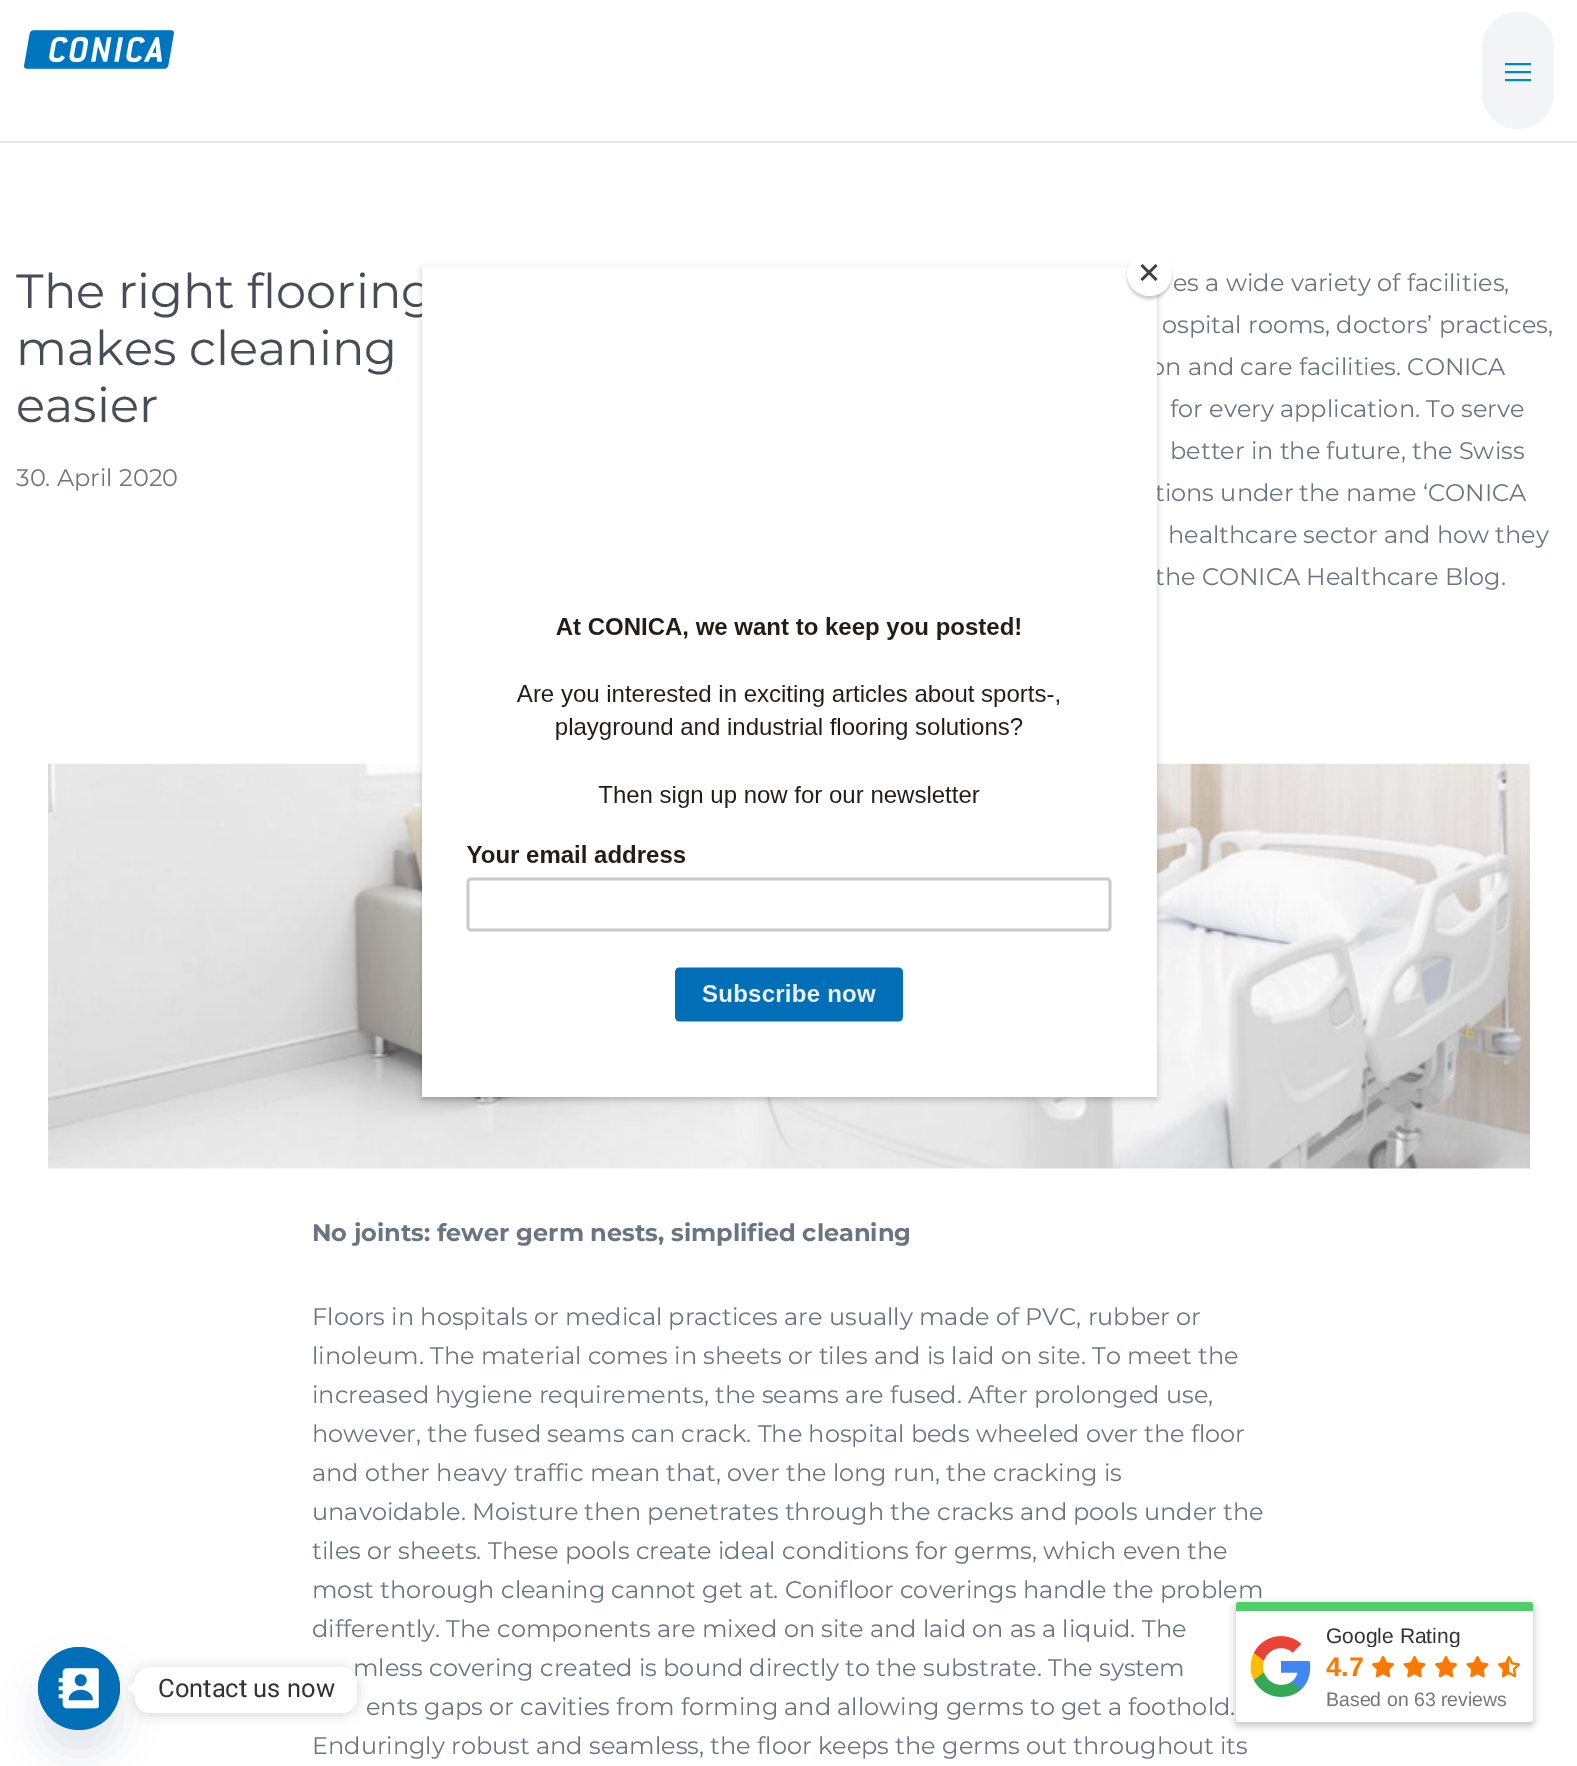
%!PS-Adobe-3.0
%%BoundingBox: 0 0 1577 1766
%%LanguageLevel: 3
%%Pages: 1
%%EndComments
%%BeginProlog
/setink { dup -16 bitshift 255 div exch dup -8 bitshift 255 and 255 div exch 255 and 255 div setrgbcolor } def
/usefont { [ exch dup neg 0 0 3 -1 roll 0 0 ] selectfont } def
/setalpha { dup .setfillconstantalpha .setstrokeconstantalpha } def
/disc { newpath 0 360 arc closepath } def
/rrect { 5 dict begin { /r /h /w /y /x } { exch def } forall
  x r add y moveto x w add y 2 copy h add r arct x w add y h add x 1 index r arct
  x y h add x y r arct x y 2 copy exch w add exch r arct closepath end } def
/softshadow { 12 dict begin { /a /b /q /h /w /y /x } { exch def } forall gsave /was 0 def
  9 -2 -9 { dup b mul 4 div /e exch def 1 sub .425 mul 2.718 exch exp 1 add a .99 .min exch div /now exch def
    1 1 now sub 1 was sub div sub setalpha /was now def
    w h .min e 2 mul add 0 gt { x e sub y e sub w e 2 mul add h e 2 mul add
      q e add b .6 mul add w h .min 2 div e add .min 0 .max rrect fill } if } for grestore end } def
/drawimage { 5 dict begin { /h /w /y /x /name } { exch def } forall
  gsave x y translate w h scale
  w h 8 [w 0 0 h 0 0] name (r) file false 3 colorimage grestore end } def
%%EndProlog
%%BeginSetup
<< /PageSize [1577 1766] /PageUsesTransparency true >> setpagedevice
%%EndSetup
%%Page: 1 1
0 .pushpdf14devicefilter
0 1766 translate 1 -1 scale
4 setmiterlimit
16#FFFFFF setink
0 0 1577 1766 rectfill
(img4.raw) 48 763 1482 406 drawimage
16#000000 setink
422 269 735 831 0 3 0.2 softshadow
/Montserrat-Regular 48 usefont
16#464D56 setink
16 308 moveto (The right flooring) show
/Montserrat-Regular 24 usefont
16#6B7481 setink
[
    [(on and care facilities. CONICA) 1150 375]
    [(tions under the name ‘CONICA) 1155 501]
    [(the CONICA Healthcare Blog.) 1155 585]
] { aload pop moveto show } forall
(img1.raw) 422 267 735 830 drawimage
16#000000 setink
1127 254 45 45 22.5 1.5 0.2 softshadow
16#FFFFFF setink
1149.5 273.5 22.5 disc fill
16#414141 setink
1155.5 264 moveto 1157.5 266 lineto 1142.5 281 lineto 1140.5 279 lineto closepath fill
1140.5 266 moveto 1142.5 264 lineto 1157.5 279 lineto 1155.5 281 lineto closepath fill
16#E5E7EE setink
0 141 1577 2 rectfill
(img2.raw) 24 30 150 39 drawimage
16#F3F4F8 setink
1482 12 72 117 36 rrect fill
(img3.raw) 1505 63 27 19 drawimage
/Montserrat-Regular 48 usefont
16#464D56 setink
16 365 moveto (makes cleaning) show
16 422 moveto (easier) show
/Montserrat-Regular 24 usefont
16#6B7481 setink
[
    [(30. April 2020) 16 486]
    [(es a wide variety of facilities,) 1173 291]
    [(ospital rooms, doctors’ practices,) 1162 333]
    [(for every application. To serve) 1170 417]
    [(better in the future, the Swiss) 1170 459]
    [(healthcare sector and how they) 1168 543]
] { aload pop moveto show } forall
/Montserrat-Bold 24 usefont
312 1241 moveto (No joints: fewer germ nests, simplified cleaning) show
/Montserrat-Regular 24 usefont
[
    [(Floors in hospitals or medical practices are usually made of PVC, rubber or) 312 1325]
    [(linoleum. The material comes in sheets or tiles and is laid on site. To meet the) 312 1364]
    [(increased hygiene requirements, the seams are fused. After prolonged use,) 312 1403]
    [(however, the fused seams can crack. The hospital beds wheeled over the floor) 312 1442]
    [(and other heavy traffic mean that, over the long run, the cracking is) 312 1481]
    [(unavoidable. Moisture then penetrates through the cracks and pools under the) 312 1520]
    [(tiles or sheets. These pools create ideal conditions for germs, which even the) 312 1559]
    [(most thorough cleaning cannot get at. Conifloor coverings handle the problem) 312 1598]
    [(differently. The components are mixed on site and laid on as a liquid. The) 312 1637]
    [(mless covering created is bound directly to the substrate. The system) 353 1676]
    [(ents gaps or cavities from forming and allowing germs to get a foothold.) 366 1715]
    [(Enduringly robust and seamless, the floor keeps the germs out throughout its) 312 1754]
] { aload pop moveto show } forall
16#49687E setink
38 1671 82 83 41 18 0.16 softshadow
16#006FB7 setink
38 1647 82 83 41 rrect fill
(img5.raw) 38 1647 82 68 drawimage
16#000000 setink
135 1668 222 47 15 6 0.15 softshadow
16#FFFFFF setink
135 1667 222 46 15 rrect fill
135 1681 moveto 135 1696 lineto 127.5 1688 lineto closepath fill
/Roboto-Regular 25.5 usefont
16#333333 setink
158 1697 moveto (Contact us now) show
16#000000 setink
1236 1605 297 120 3 4 0.26 softshadow
16#4FCE6A setink
1239 1602 moveto 1530 1602 lineto 1531.5 1602 1533 1603.5 1533 1605 curveto 1533 1611 lineto 1236 1611 lineto 1236 1605 lineto 1236 1603.5 1237.5 1602 1239 1602 curveto closepath fill
16#FFFFFF setink
1236 1611 moveto 1533 1611 lineto 1533 1719 lineto 1533 1720.5 1531.5 1722 1530 1722 curveto 1239 1722 lineto 1237.5 1722 1236 1720.5 1236 1719 curveto closepath fill
(img6.raw) 1250 1636 61 61 drawimage
gsave
1326 1623 195 24 rectclip
/LiberationSans-Regular 21 usefont
16#333333 setink
1326 1643 moveto (Google Rating) show
grestore
/LiberationSans-Bold 27 usefont
16#FB7900 setink
1326 1676 moveto (4.7) show
(img7.raw) 1372 1656 22 22 drawimage
(img8.raw) 1403 1656 23 22 drawimage
(img7.raw) 1435 1656 22 22 drawimage
(img8.raw) 1466 1656 23 22 drawimage
(img9.raw) 1498 1656 22 22 drawimage
/LiberationSans-Regular 19.5 usefont
16#777777 setink
1326 1706 moveto (Based on 63 reviews) show
.poppdf14devicefilter showpage
%%EOF
